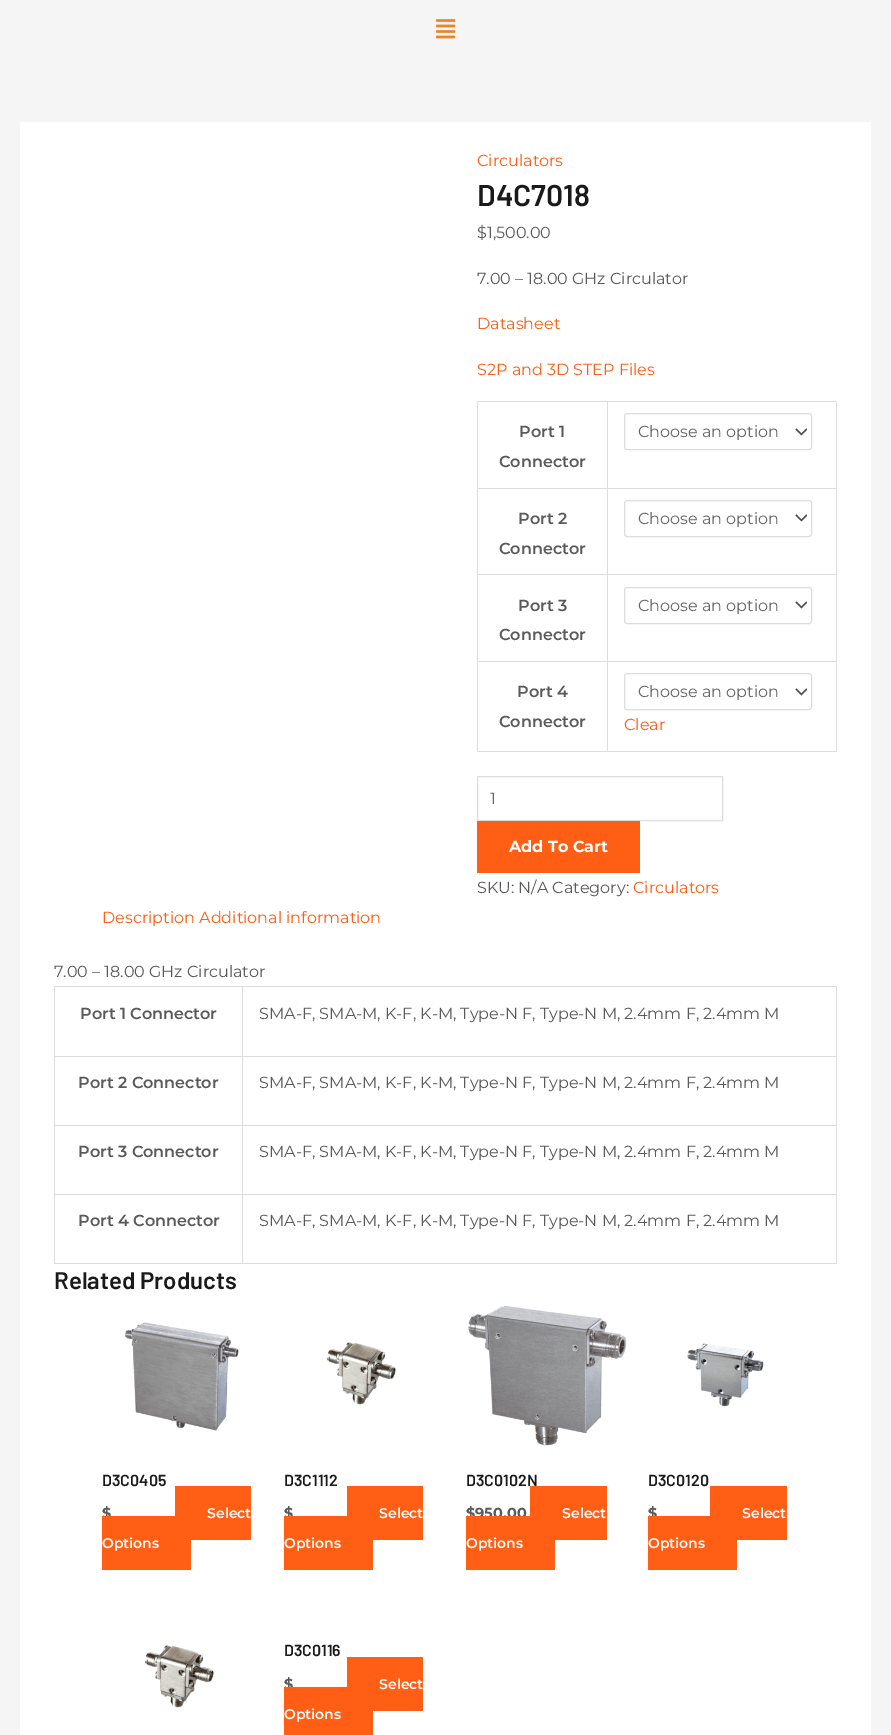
%!PS-Adobe-3.0
%%BoundingBox: 0 0 891 1735
%%LanguageLevel: 3
%%Pages: 1
%%EndComments
%%BeginProlog
/setink { dup -16 bitshift 255 div exch dup -8 bitshift 255 and 255 div exch 255 and 255 div setrgbcolor } def
/usefont { [ exch dup neg 0 0 3 -1 roll 0 0 ] selectfont } def
/rrect { 5 dict begin { /r /h /w /y /x } { exch def } forall
  x r add y moveto x w add y 2 copy h add r arct x w add y h add x 1 index r arct
  x y h add x y r arct x y 2 copy exch w add exch r arct closepath end } def
/drawimage { 5 dict begin { /h /w /y /x /name } { exch def } forall
  gsave x y translate w h scale
  w h 8 [w 0 0 h 0 0] name (r) file false 3 colorimage grestore end } def
%%EndProlog
%%BeginSetup
<< /PageSize [891 1735] >> setpagedevice
%%EndSetup
%%Page: 1 1
0 1735 translate 1 -1 scale
4 setmiterlimit
16#F5F5F5 setink
0 0 891 1735 rectfill
(img1.raw) 436 19 20 20 drawimage
16#FFFFFF setink
20 122 851 1613 rectfill
/Montserrat-Regular 16 usefont
16#FF5E14 setink
477 166 moveto (Circulators) show
/Barlow-SemiBold 30 usefont
16#1A1A1A setink
477 206 moveto (D4C7018) show
/Montserrat-Regular 16 usefont
16#5A5A5A setink
477 238 moveto ($1,500.00) show
477 284 moveto (7.00 – 18.00 GHz Circulator) show
16#FF5E14 setink
477 329 moveto (Datasheet) show
477 375 moveto (S2P and 3D STEP Files) show
[
    [477 401 360 1 16#DDDDDD]
    [477 401 1 351 16#DDDDDD]
    [607 402 1 350 16#DDDDDD]
    [478 488 130 1 16#DDDDDD]
] { aload pop setink rectfill } forall
/Montserrat-SemiBold 16 usefont
16#5A5A5A setink
519 437 moveto (Port 1) show
499 467 moveto (Connector) show
16#DDDDDD setink
836 402 1 350 rectfill
608 488 229 1 rectfill
(img2.raw) 795 428 12 8 drawimage
624.5 413.5 187 36 2.5 rrect stroke
/Montserrat-Regular 16 usefont
16#666666 setink
638 437 moveto (Choose an option) show
16#DDDDDD setink
478 574 359 1 rectfill
/Montserrat-SemiBold 16 usefont
16#5A5A5A setink
518 524 moveto (Port 2) show
499 554 moveto (Connector) show
(img2.raw) 795 514 12 8 drawimage
16#DDDDDD setink
624.5 500.5 187 36 2.5 rrect stroke
/Montserrat-Regular 16 usefont
16#666666 setink
638 524 moveto (Choose an option) show
16#DDDDDD setink
478 661 359 1 rectfill
/Montserrat-SemiBold 16 usefont
16#5A5A5A setink
518 611 moveto (Port 3) show
499 640 moveto (Connector) show
(img2.raw) 795 601 12 8 drawimage
16#DDDDDD setink
624.5 587.5 187 36 2.5 rrect stroke
/Montserrat-Regular 16 usefont
16#666666 setink
638 611 moveto (Choose an option) show
16#DDDDDD setink
478 751 359 1 rectfill
/Montserrat-SemiBold 16 usefont
16#5A5A5A setink
517 697 moveto (Port 4) show
499 727 moveto (Connector) show
(img2.raw) 795 688 12 8 drawimage
16#DDDDDD setink
624.5 673.5 187 36 2.5 rrect stroke
/Montserrat-Regular 16 usefont
16#666666 setink
638 697 moveto (Choose an option) show
16#FF5E14 setink
624 730 moveto (Clear) show
16#DDDDDD setink
477.5 776.5 245 44 rectstroke
16#666666 setink
490 804 moveto (1) show
16#FF5E14 setink
477 821 163 52 rectfill
/Montserrat-Bold 16 usefont
16#FFFFFF setink
509 852 moveto (Add To Cart) show
/Montserrat-Regular 16 usefont
16#5A5A5A setink
477 893 moveto (SKU: N/A Category:) show
16#FF5E14 setink
633 893 moveto (Circulators) show
102 923 moveto (Description Additional information) show
16#5A5A5A setink
54 977 moveto (7.00 – 18.00 GHz Circulator) show
[
    [54 986 783 1 16#DDDDDD]
    [54 986 1 278 16#DDDDDD]
    [242 987 1 277 16#DDDDDD]
    [55 1056 188 1 16#DDDDDD]
] { aload pop setink rectfill } forall
/Montserrat-SemiBold 16 usefont
16#5A5A5A setink
80 1019 moveto (Port 1 Connector) show
16#DDDDDD setink
836 987 1 277 rectfill
243 1056 594 1 rectfill
/Montserrat-Regular 16 usefont
16#5A5A5A setink
259 1019 moveto (SMA-F, SMA-M, K-F, K-M, Type-N F, Type-N M, 2.4mm F, 2.4mm M) show
16#DDDDDD setink
55 1125 782 1 rectfill
/Montserrat-SemiBold 16 usefont
16#5A5A5A setink
78 1088 moveto (Port 2 Connector) show
/Montserrat-Regular 16 usefont
259 1088 moveto (SMA-F, SMA-M, K-F, K-M, Type-N F, Type-N M, 2.4mm F, 2.4mm M) show
16#DDDDDD setink
55 1194 782 1 rectfill
/Montserrat-SemiBold 16 usefont
16#5A5A5A setink
78 1157 moveto (Port 3 Connector) show
/Montserrat-Regular 16 usefont
259 1157 moveto (SMA-F, SMA-M, K-F, K-M, Type-N F, Type-N M, 2.4mm F, 2.4mm M) show
16#DDDDDD setink
55 1263 782 1 rectfill
/Montserrat-SemiBold 16 usefont
16#5A5A5A setink
78 1226 moveto (Port 4 Connector) show
/Montserrat-Regular 16 usefont
259 1226 moveto (SMA-F, SMA-M, K-F, K-M, Type-N F, Type-N M, 2.4mm F, 2.4mm M) show
/Barlow-SemiBold 24 usefont
16#1A1A1A setink
54 1289 moveto (Related Products) show
(img3.raw) 125 1322 114 109 drawimage
/Barlow-SemiBold 16 usefont
102 1486 moveto (D3C0405) show
/Montserrat-Bold 14.5 usefont
16#5A5A5A setink
102 1518 moveto ($) show
16#FF5E14 setink
175 1486 76 54 rectfill
/Montserrat-SemiBold 14 usefont
16#FFFFFF setink
207 1518 moveto (Select) show
16#FF5E14 setink
102 1516 89 54 rectfill
16#FFFFFF setink
102 1548 moveto (Options) show
(img4.raw) 326 1342 70 63 drawimage
/Barlow-SemiBold 16 usefont
16#1A1A1A setink
284 1486 moveto (D3C1112) show
/Montserrat-Bold 14.5 usefont
16#5A5A5A setink
284 1518 moveto ($) show
16#FF5E14 setink
347 1486 76 54 rectfill
/Montserrat-SemiBold 14 usefont
16#FFFFFF setink
379 1518 moveto (Select) show
16#FF5E14 setink
284 1516 89 54 rectfill
16#FFFFFF setink
284 1548 moveto (Options) show
(img5.raw) 468 1306 159 140 drawimage
/Barlow-SemiBold 16 usefont
16#1A1A1A setink
466 1486 moveto (D3C0102N) show
/Montserrat-Bold 14.5 usefont
16#5A5A5A setink
466 1518 moveto ($950.00) show
16#FF5E14 setink
530 1486 77 54 rectfill
/Montserrat-SemiBold 14 usefont
16#FFFFFF setink
562 1518 moveto (Select) show
16#FF5E14 setink
466 1516 89 54 rectfill
16#FFFFFF setink
466 1548 moveto (Options) show
(img6.raw) 687 1343 77 64 drawimage
/Barlow-SemiBold 16 usefont
16#1A1A1A setink
648 1486 moveto (D3C0120) show
/Montserrat-Bold 14.5 usefont
16#5A5A5A setink
648 1518 moveto ($) show
16#FF5E14 setink
710 1486 77 54 rectfill
/Montserrat-SemiBold 14 usefont
16#FFFFFF setink
742 1518 moveto (Select) show
16#FF5E14 setink
648 1516 89 54 rectfill
16#FFFFFF setink
648 1548 moveto (Options) show
(img7.raw) 144 1645 70 63 drawimage
/Barlow-SemiBold 16 usefont
16#1A1A1A setink
284 1656 moveto (D3C0116) show
/Montserrat-Bold 14.5 usefont
16#5A5A5A setink
284 1689 moveto ($) show
16#FF5E14 setink
347 1657 76 54 rectfill
/Montserrat-SemiBold 14 usefont
16#FFFFFF setink
379 1689 moveto (Select) show
16#FF5E14 setink
284 1687 89 48 rectfill
16#FFFFFF setink
284 1719 moveto (Options) show
showpage
%%EOF
